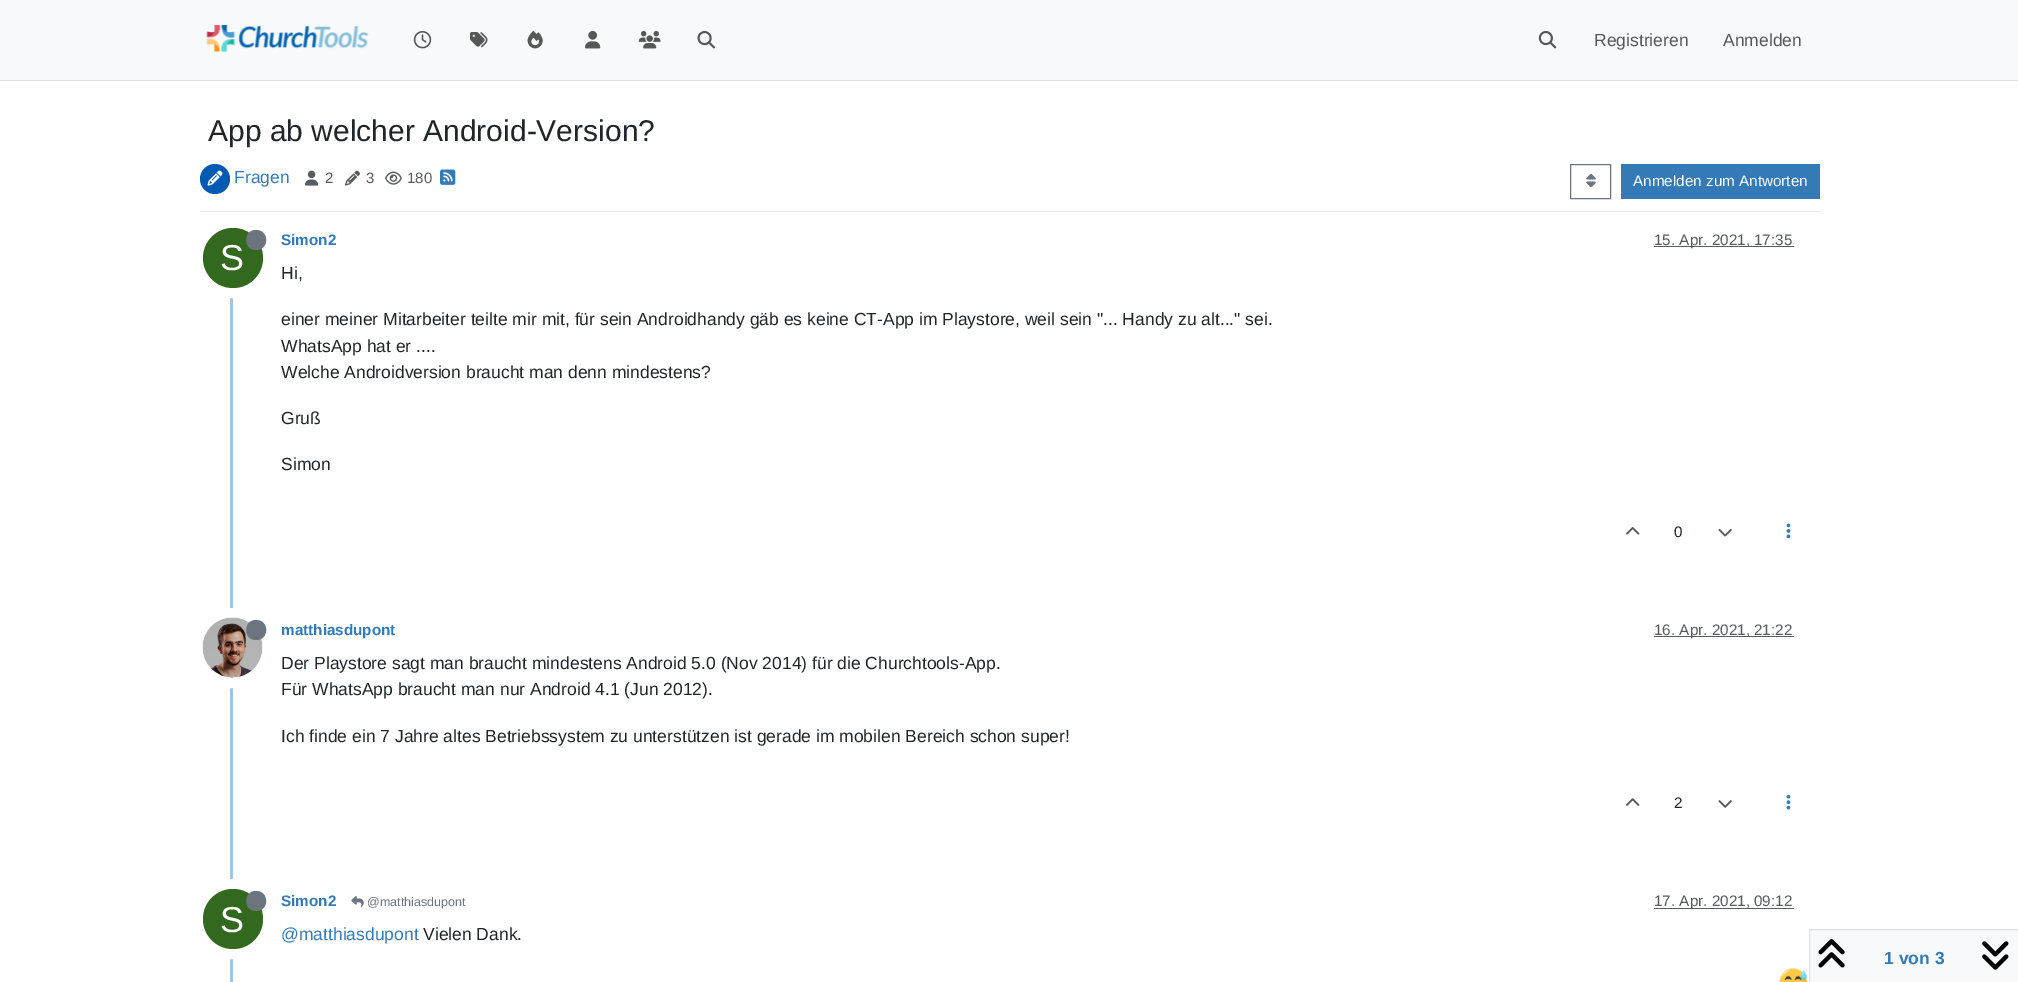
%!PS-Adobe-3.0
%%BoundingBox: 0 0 2018 982
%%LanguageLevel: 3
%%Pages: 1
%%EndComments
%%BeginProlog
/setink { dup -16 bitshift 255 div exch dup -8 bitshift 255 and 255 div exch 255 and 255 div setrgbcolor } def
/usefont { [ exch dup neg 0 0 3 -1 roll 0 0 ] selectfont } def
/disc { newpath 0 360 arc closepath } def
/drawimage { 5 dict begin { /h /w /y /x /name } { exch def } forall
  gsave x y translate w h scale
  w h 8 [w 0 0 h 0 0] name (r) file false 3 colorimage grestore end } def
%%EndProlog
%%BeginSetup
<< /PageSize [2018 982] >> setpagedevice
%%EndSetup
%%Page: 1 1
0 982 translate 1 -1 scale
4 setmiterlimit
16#FFFFFF setink
0 0 2018 982 rectfill
16#F8F9FA setink
0 0 2018 80 rectfill
16#DEE2E6 setink
0 80 2018 1 rectfill
(img1.raw) 206 25 163 28 drawimage
(img2.raw) 413 31 19 18 drawimage
(img3.raw) 470 32 18 16 drawimage
(img4.raw) 527 31 16 18 drawimage
(img5.raw) 585 31 16 18 drawimage
(img6.raw) 638 31 23 18 drawimage
(img7.raw) 697 30 18 19 drawimage
(img8.raw) 1538 31 19 18 drawimage
/LiberationSans-Regular 17.5 usefont
16#575758 setink
1594 46 moveto (Registrieren) show
1723 46 moveto (Anmelden) show
/LiberationSans-Regular 30 usefont
16#212529 setink
208 141 moveto (App ab welcher Android-Version?) show
16#E9ECEF setink
200 211 1620 1 rectfill
16#0059B2 setink
215 179 15 disc fill
(img9.raw) 207 170 16 16 drawimage
/LiberationSans-Regular 17.5 usefont
16#337AB7 setink
234 183 moveto (Fragen) show
(img10.raw) 305 170 14 16 drawimage
/LiberationSans-Regular 15 usefont
16#585B5E setink
325 183 moveto (2) show
(img11.raw) 345 170 15 16 drawimage
366 183 moveto (3) show
(img12.raw) 385 171 17 14 drawimage
407 183 moveto (180) show
(img13.raw) 440 169 16 16 drawimage
16#6C757D setink
1570.5 164.5 40 34 rectstroke
(img14.raw) 1586 173 10 15 drawimage
16#337AB7 setink
1621 164 199 35 rectfill
/LiberationSans-Regular 15.25 usefont
16#FFFFFF setink
1633 186 moveto (Anmelden zum Antworten) show
16#A0C4E4 setink
230 225 3 757 rectfill
/LiberationSans-Bold 15.25 usefont
16#337AB7 setink
281 245 moveto (Simon2) show
16#595C5F setink
1654 246 140 1 rectfill
/LiberationSans-Regular 15.25 usefont
16#585B5E setink
1654 245 moveto (15. Apr. 2021, 17:35) show
16#FFFFFF setink
10 setlinewidth
233 258 35 disc stroke
16#33691E setink
233 258 30 disc fill
16#6C757D setink
256 250 moveto 269.5 250 269.5 230 256 230 curveto 243 230 243 250 256 250 curveto closepath fill
/LiberationSans-Regular 36 usefont
16#FFFFFF setink
220 270 moveto (S) show
/LiberationSans-Regular 17.5 usefont
16#212529 setink
[
    [(Hi,) 281 279]
    [(einer meiner Mitarbeiter teilte mir mit, für sein Androidhandy gäb es keine CT-App im Playstore, weil sein "... Handy zu alt..." sei.) 281 325]
    [(WhatsApp hat er ....) 281 352]
    [(Welche Androidversion braucht man denn mindestens?) 281 378]
    [(Gruß) 281 424]
    [(Simon) 281 470]
] { aload pop moveto show } forall
(img15.raw) 1626 527 14 8 drawimage
/LiberationSans-Regular 15.25 usefont
1674 537 moveto (0) show
(img16.raw) 1718 528 14 9 drawimage
(img17.raw) 1786 523 5 16 drawimage
16#FFFFFF setink
233 648 35 disc stroke
(img18.raw) 202 617 61 61 drawimage
16#6C757D setink
256 640 moveto 269.5 640 269.5 620 256 620 curveto 243 620 243 640 256 640 curveto closepath fill
/LiberationSans-Bold 15.25 usefont
16#337AB7 setink
281 635 moveto (matthiasdupont) show
16#595C5F setink
1654 636 140 1 rectfill
/LiberationSans-Regular 15.25 usefont
16#585B5E setink
1654 635 moveto (16. Apr. 2021, 21:22) show
/LiberationSans-Regular 17.5 usefont
16#212529 setink
[
    [(Der Playstore sagt man braucht mindestens Android 5.0 \(Nov 2014\) für die Churchtools-App.) 281 669]
    [(Für WhatsApp braucht man nur Android 4.1 \(Jun 2012\).) 281 695]
    [(Ich finde ein 7 Jahre altes Betriebssystem zu unterstützen ist gerade im mobilen Bereich schon super!) 281 742]
] { aload pop moveto show } forall
(img19.raw) 1626 798 14 8 drawimage
/LiberationSans-Regular 15.25 usefont
1674 808 moveto (2) show
(img20.raw) 1718 800 14 8 drawimage
(img21.raw) 1786 794 5 16 drawimage
/LiberationSans-Bold 15.25 usefont
16#337AB7 setink
281 906 moveto (Simon2) show
(img22.raw) 351 896 13 11 drawimage
/LiberationSans-Regular 12.5 usefont
16#6C757D setink
367 906 moveto (@matthiasdupont) show
16#595C5F setink
1654 908 140 1 rectfill
/LiberationSans-Regular 15.25 usefont
16#585B5E setink
1654 906 moveto (17. Apr. 2021, 09:12) show
16#FFFFFF setink
233 919 35 disc stroke
16#33691E setink
233 919 30 disc fill
16#6C757D setink
256 911 moveto 269.5 911 269.5 891 256 891 curveto 243 891 243 911 256 911 curveto closepath fill
/LiberationSans-Regular 36 usefont
16#FFFFFF setink
220 932 moveto (S) show
/LiberationSans-Regular 17.5 usefont
16#337AB7 setink
281 940 moveto (@matthiasdupont) show
16#212529 setink
423 940 moveto (Vielen Dank.) show
(img23.raw) 1779 968 28 14 drawimage
16#F8F9FA setink
1809.5 929.5 moveto 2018.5 929.5 lineto 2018.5 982.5 lineto 1809.5 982.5 lineto closepath gsave fill grestore
16#DEE2E6 setink
1 setlinewidth
stroke
(img24.raw) 1818 939 27 29 drawimage
/LiberationSans-Bold 17.5 usefont
16#337AB7 setink
1884 964 moveto (1 von 3) show
(img25.raw) 1982 941 27 29 drawimage
showpage
%%EOF
